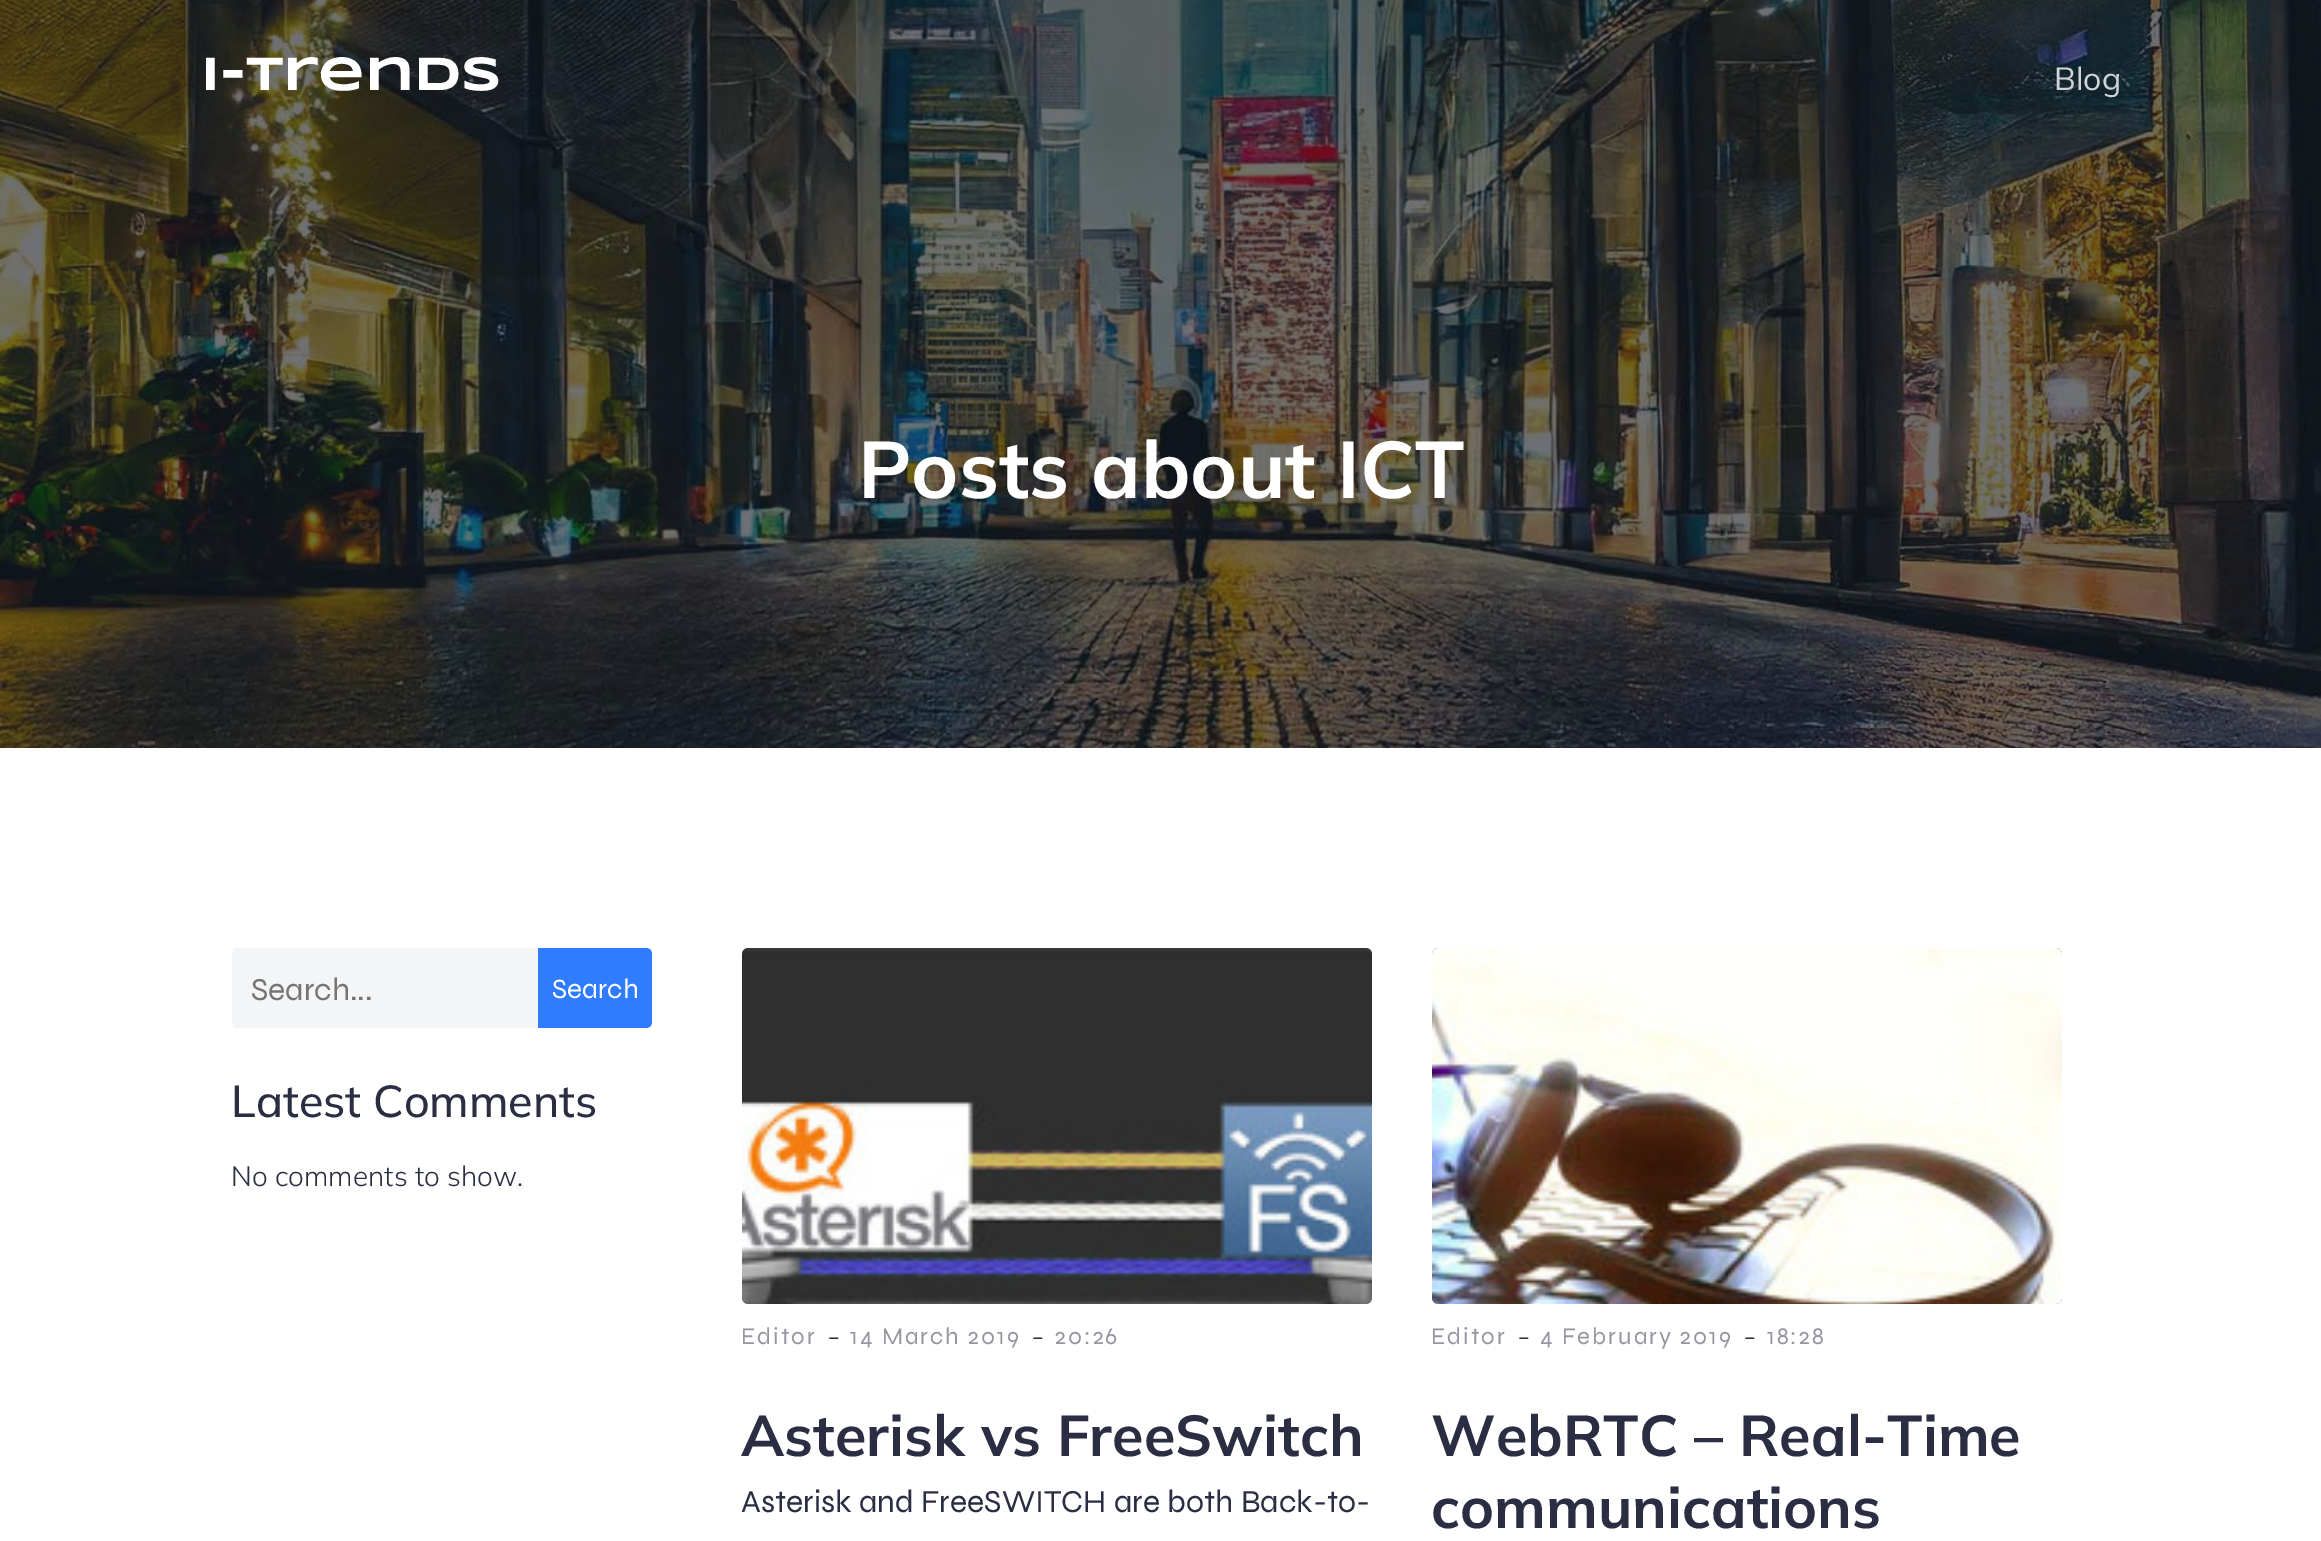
%!PS-Adobe-3.0
%%BoundingBox: 0 0 2321 1541
%%LanguageLevel: 3
%%Pages: 1
%%EndComments
%%BeginProlog
/setink { dup -16 bitshift 255 div exch dup -8 bitshift 255 and 255 div exch 255 and 255 div setrgbcolor } def
/usefont { [ exch dup neg 0 0 3 -1 roll 0 0 ] selectfont } def
/drawimage { 5 dict begin { /h /w /y /x /name } { exch def } forall
  gsave x y translate w h scale
  w h 8 [w 0 0 h 0 0] name (r) file false 3 colorimage grestore end } def
%%EndProlog
%%BeginSetup
<< /PageSize [2321 1541] >> setpagedevice
%%EndSetup
%%Page: 1 1
0 1541 translate 1 -1 scale
4 setmiterlimit
16#FFFFFF setink
0 0 2321 1541 rectfill
(img1.raw) 0 0 2321 748 drawimage
/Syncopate-Bold 48 usefont
201 90 moveto (i-Trends) show
/Mulish-Regular 32 usefont
16#D0D4D6 setink
2054 90 moveto (Blog) show
/Mulish-Bold 80 usefont
16#FFFFFF setink
858 498 moveto (Posts about ICT) show
16#F4F5F6 setink
238 948 moveto 538 948 lineto 538 1028 lineto 238 1028 lineto 234.5 1028 232 1025.5 232 1022 curveto 232 954 lineto 232 950.5 234.5 948 238 948 curveto closepath fill
/Syne-Regular 32 usefont
16#757575 setink
251 1000 moveto (Search...) show
16#2F7CFF setink
538 948 moveto 646 948 lineto 649.5 948 652 950.5 652 954 curveto 652 1022 lineto 652 1025.5 649.5 1028 646 1028 curveto 538 1028 lineto closepath fill
/Syne-Regular 28 usefont
16#FFFFFF setink
552 998 moveto (Search) show
/Mulish-Medium 44.75 usefont
16#2B2D42 setink
231 1117 moveto (Latest Comments) show
/Mulish-Light 28 usefont
231 1186 moveto (No comments to show.) show
(img2.raw) 742 948 630 356 drawimage
/Syne-Regular 24 usefont
16#9596A1 setink
741 1344 moveto 2 0 (Editor) ashow
/Mulish-Light 32 usefont
16#2B2D42 setink
827 1347 moveto (-) show
/Syne-Regular 24 usefont
16#9596A1 setink
850 1344 moveto 2 0 (14 March 2019) ashow
/Mulish-Light 32 usefont
16#2B2D42 setink
1031 1347 moveto (-) show
/Syne-Regular 24 usefont
16#9596A1 setink
1055 1344 moveto 2 0 (20:26) ashow
/Mulish-Bold 57.6 usefont
16#2B2D42 setink
741 1456 moveto (Asterisk vs FreeSwitch) show
/Syne-Regular 32 usefont
741 1512 moveto 0.75 0 32 (Asterisk and FreeSWITCH are both Back-to-) widthshow
(img3.raw) 1432 948 630 356 drawimage
/Syne-Regular 24 usefont
16#9596A1 setink
1431 1344 moveto 2 0 (Editor) ashow
/Mulish-Light 32 usefont
16#2B2D42 setink
1517 1347 moveto (-) show
/Syne-Regular 24 usefont
16#9596A1 setink
1540 1344 moveto 2 0 (4 February 2019) ashow
/Mulish-Light 32 usefont
16#2B2D42 setink
1743 1347 moveto (-) show
/Syne-Regular 24 usefont
16#9596A1 setink
1767 1344 moveto 2 0 (18:28) ashow
/Mulish-Bold 57.6 usefont
16#2B2D42 setink
1431 1456 moveto (WebRTC – Real-Time) show
1431 1528 moveto (communications) show
showpage
%%EOF
